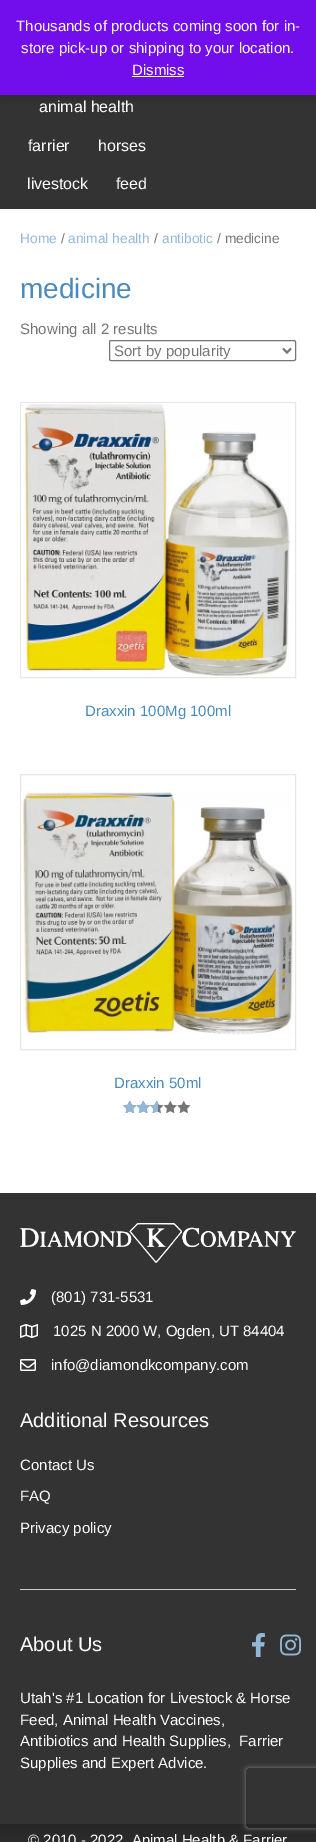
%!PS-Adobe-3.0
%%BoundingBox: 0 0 316 1842
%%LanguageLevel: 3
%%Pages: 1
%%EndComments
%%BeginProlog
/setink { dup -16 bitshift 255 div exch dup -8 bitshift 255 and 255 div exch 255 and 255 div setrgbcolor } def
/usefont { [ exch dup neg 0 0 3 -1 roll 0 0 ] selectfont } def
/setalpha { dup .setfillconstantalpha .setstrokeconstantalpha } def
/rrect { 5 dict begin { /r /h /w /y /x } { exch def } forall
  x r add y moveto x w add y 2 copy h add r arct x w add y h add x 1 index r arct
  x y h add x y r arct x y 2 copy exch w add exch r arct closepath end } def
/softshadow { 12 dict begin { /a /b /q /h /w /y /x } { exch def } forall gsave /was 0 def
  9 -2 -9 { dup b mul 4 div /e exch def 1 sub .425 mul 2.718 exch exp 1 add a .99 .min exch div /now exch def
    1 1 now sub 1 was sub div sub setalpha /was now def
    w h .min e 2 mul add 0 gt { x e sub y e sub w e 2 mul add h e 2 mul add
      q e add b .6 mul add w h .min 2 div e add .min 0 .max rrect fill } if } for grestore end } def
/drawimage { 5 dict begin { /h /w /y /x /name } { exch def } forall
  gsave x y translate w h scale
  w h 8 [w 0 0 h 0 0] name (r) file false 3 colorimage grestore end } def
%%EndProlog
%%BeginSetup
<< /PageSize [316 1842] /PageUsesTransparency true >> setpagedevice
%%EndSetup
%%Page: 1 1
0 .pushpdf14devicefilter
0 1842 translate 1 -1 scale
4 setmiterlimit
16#FFFFFF setink
0 0 316 1842 rectfill
16#333333 setink
0 95 316 114 rectfill
16#000000 setink
0 1 316 95 0 7.5 0.2 softshadow
16#720EEC setink
0 0 316 95 rectfill
/LiberationSans-Regular 15 usefont
16#FFFFFF setink
[
    [(Thousands of products coming soon for in-) 16 31]
    [(store pick-up or shipping to your location.) 21 53]
    [(Dismiss) 132 75]
] { aload pop moveto show } forall
16#FCFBFE setink
132 76 52 1 rectfill
/LiberationSans-Regular 16 usefont
16#FFFFFF setink
[
    [(animal health) 39 112]
    [(farrier) 28 151]
    [(horses) 98 151]
    [(livestock) 27 189]
    [(feed) 116 189]
] { aload pop moveto show } forall
/LiberationSans-Regular 13.75 usefont
16#92B8D8 setink
20 243 moveto (Home) show
16#757575 setink
61 243 moveto (/) show
16#92B8D8 setink
68 243 moveto (animal health) show
16#757575 setink
154 243 moveto (/) show
16#92B8D8 setink
162 243 moveto (antibotic) show
16#757575 setink
217 243 moveto (/ medicine) show
/LiberationSans-Regular 28 usefont
16#4A8ABD setink
20 298 moveto (medicine) show
/LiberationSans-Regular 15 usefont
16#757575 setink
20 334 moveto (Showing all 2 results) show
16#767676 setink
109.5 340.5 186 20 1.5 rrect stroke
16#757575 setink
2 setlinewidth
283 348.5 moveto 287 352.5 lineto 291 348.5 lineto stroke
114 356 moveto (Sort by popularity) show
16#E6E6E6 setink
1 setlinewidth
20.5 402.5 275 275 rectstroke
(img1.raw) 21 403 269 274 drawimage
16#4A8ABD setink
85 716 moveto (Draxxin 100Mg 100ml) show
16#E6E6E6 setink
20.5 774.5 275 275 rectstroke
(img2.raw) 21 791 274 244 drawimage
16#4A8ABD setink
114 1088 moveto (Draxxin 50ml) show
(img3.raw) 123 1101 68 12 drawimage
(img4.raw) 123 1101 35 12 drawimage
16#333333 setink
0 1193 316 631 rectfill
(img5.raw) 20 1223 276 40 drawimage
(img6.raw) 20 1289 16 16 drawimage
16#FFFFFF setink
51 1302 moveto (\(801\) 731-5531) show
(img7.raw) 20 1324 18 14 drawimage
53 1336 moveto (1025 N 2000 W, Ogden, UT 84404) show
(img8.raw) 20 1359 16 12 drawimage
51 1370 moveto (info@diamondkcompany.com) show
/LiberationSans-Regular 20 usefont
20 1427 moveto (Additional Resources) show
/LiberationSans-Regular 15 usefont
[
    [(Contact Us) 20 1470]
    [(FAQ) 20 1501]
    [(Privacy policy) 20 1533]
] { aload pop moveto show } forall
16#CCCCCC setink
20 1589 276 1 rectfill
/LiberationSans-Regular 20 usefont
16#FFFFFF setink
20 1651 moveto (About Us) show
(img9.raw) 252 1633 13 24 drawimage
(img10.raw) 280 1634 22 22 drawimage
/LiberationSans-Regular 15 usefont
[
    [(Utah's #1 Location for Livestock & Horse) 20 1703]
    [(Feed, Animal Health Vaccines,) 20 1725]
    [(Antibiotics and Health Supplies,  Farrier) 20 1746]
    [(Supplies and Expert Advice.) 20 1768]
] { aload pop moveto show } forall
gsave 0 1824 moveto 316 1824 lineto 316 1842 lineto 0 1842 lineto closepath clip newpath
<< /ShadingType 2 /ColorSpace /DeviceRGB /Coords [158 1824 158 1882] /Extend [true true] /Function << /FunctionType 2 /Domain [0 1] /C0 [0.149 0.149 0.149] /C1 [0.227 0.227 0.227] /N 1 >> >> shfill grestore
28 1845 moveto (© 2010 - 2022  Animal Health & Farrier) show
gsave
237 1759 moveto 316 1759 lineto 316 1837 lineto 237 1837 lineto closepath 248 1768 moveto 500 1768 lineto 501 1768 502 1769 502 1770 curveto 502 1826 lineto 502 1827 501 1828 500 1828 curveto 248 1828 lineto 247 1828 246 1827 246 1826 curveto 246 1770 lineto 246 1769 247 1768 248 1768 curveto closepath eoclip newpath
16#808080 setink
246 1768 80 60 2 2.5 1 softshadow
grestore
.poppdf14devicefilter showpage
%%EOF
